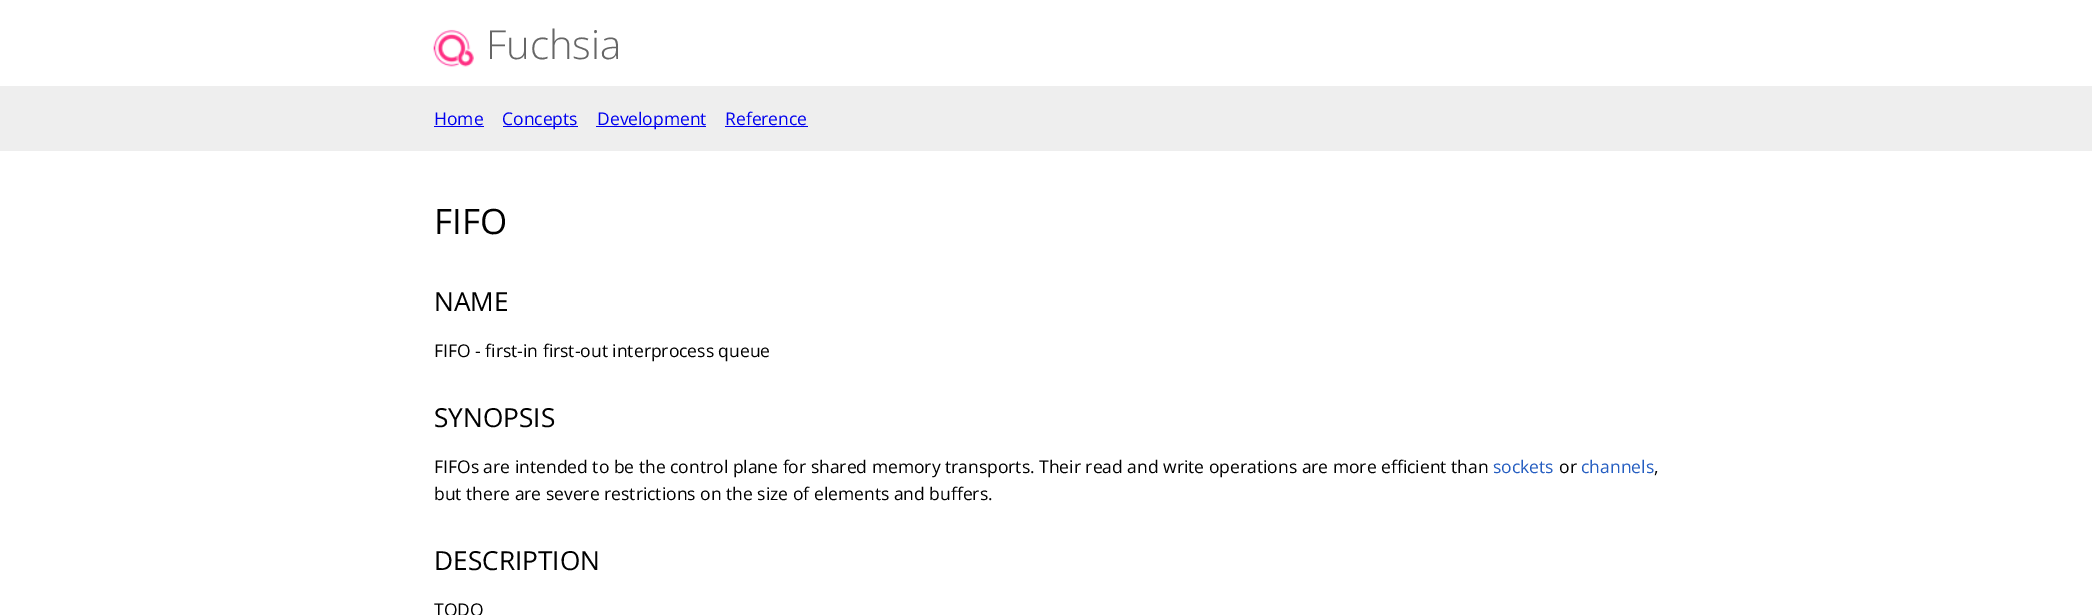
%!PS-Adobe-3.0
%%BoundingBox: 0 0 2092 615
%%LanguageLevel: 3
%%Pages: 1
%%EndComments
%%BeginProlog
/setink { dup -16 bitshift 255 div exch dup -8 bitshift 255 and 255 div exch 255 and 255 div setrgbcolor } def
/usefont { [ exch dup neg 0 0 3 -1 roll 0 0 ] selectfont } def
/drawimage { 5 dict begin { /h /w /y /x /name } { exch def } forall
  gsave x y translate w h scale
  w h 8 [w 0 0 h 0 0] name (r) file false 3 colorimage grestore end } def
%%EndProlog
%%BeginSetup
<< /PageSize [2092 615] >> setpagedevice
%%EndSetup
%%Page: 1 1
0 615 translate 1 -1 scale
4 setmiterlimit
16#FFFFFF setink
0 0 2092 615 rectfill
(img1.raw) 433 29 41 38 drawimage
/OpenSans-Light 40 usefont
16#666666 setink
486 59 moveto (Fuchsia) show
16#EEEEEE setink
0 86 2092 65 rectfill
/OpenSans-Regular 17.5 usefont
16#0000EE setink
434 125 moveto (Home) show
434 126 50 1 rectfill
503 126 75 1 rectfill
502 125 moveto (Concepts) show
596 126 110 1 rectfill
597 125 moveto (Development) show
725 125 moveto (Reference) show
725 126 83 1 rectfill
/OpenSans-Regular 35 usefont
16#000000 setink
434 234 moveto (FIFO) show
/OpenSans-Regular 26.25 usefont
434 311 moveto (NAME) show
/OpenSans-Regular 17.5 usefont
434 357 moveto (FIFO - first-in first-out interprocess queue) show
/OpenSans-Regular 26.25 usefont
434 427 moveto (SYNOPSIS) show
/OpenSans-Regular 17.5 usefont
434 473 moveto (FIFOs are intended to be the control plane for shared memory transports. Their read and write operations are more efficient than) show
16#245DC1 setink
1493 473 moveto (sockets) show
16#000000 setink
1559 473 moveto (or) show
16#245DC1 setink
1581 473 moveto (channels) show
16#000000 setink
1654 473 moveto (,) show
434 500 moveto (but there are severe restrictions on the size of elements and buffers.) show
/OpenSans-Regular 26.25 usefont
434 570 moveto (DESCRIPTION) show
/OpenSans-Regular 17.5 usefont
434 616 moveto (TODO) show
showpage
%%EOF
